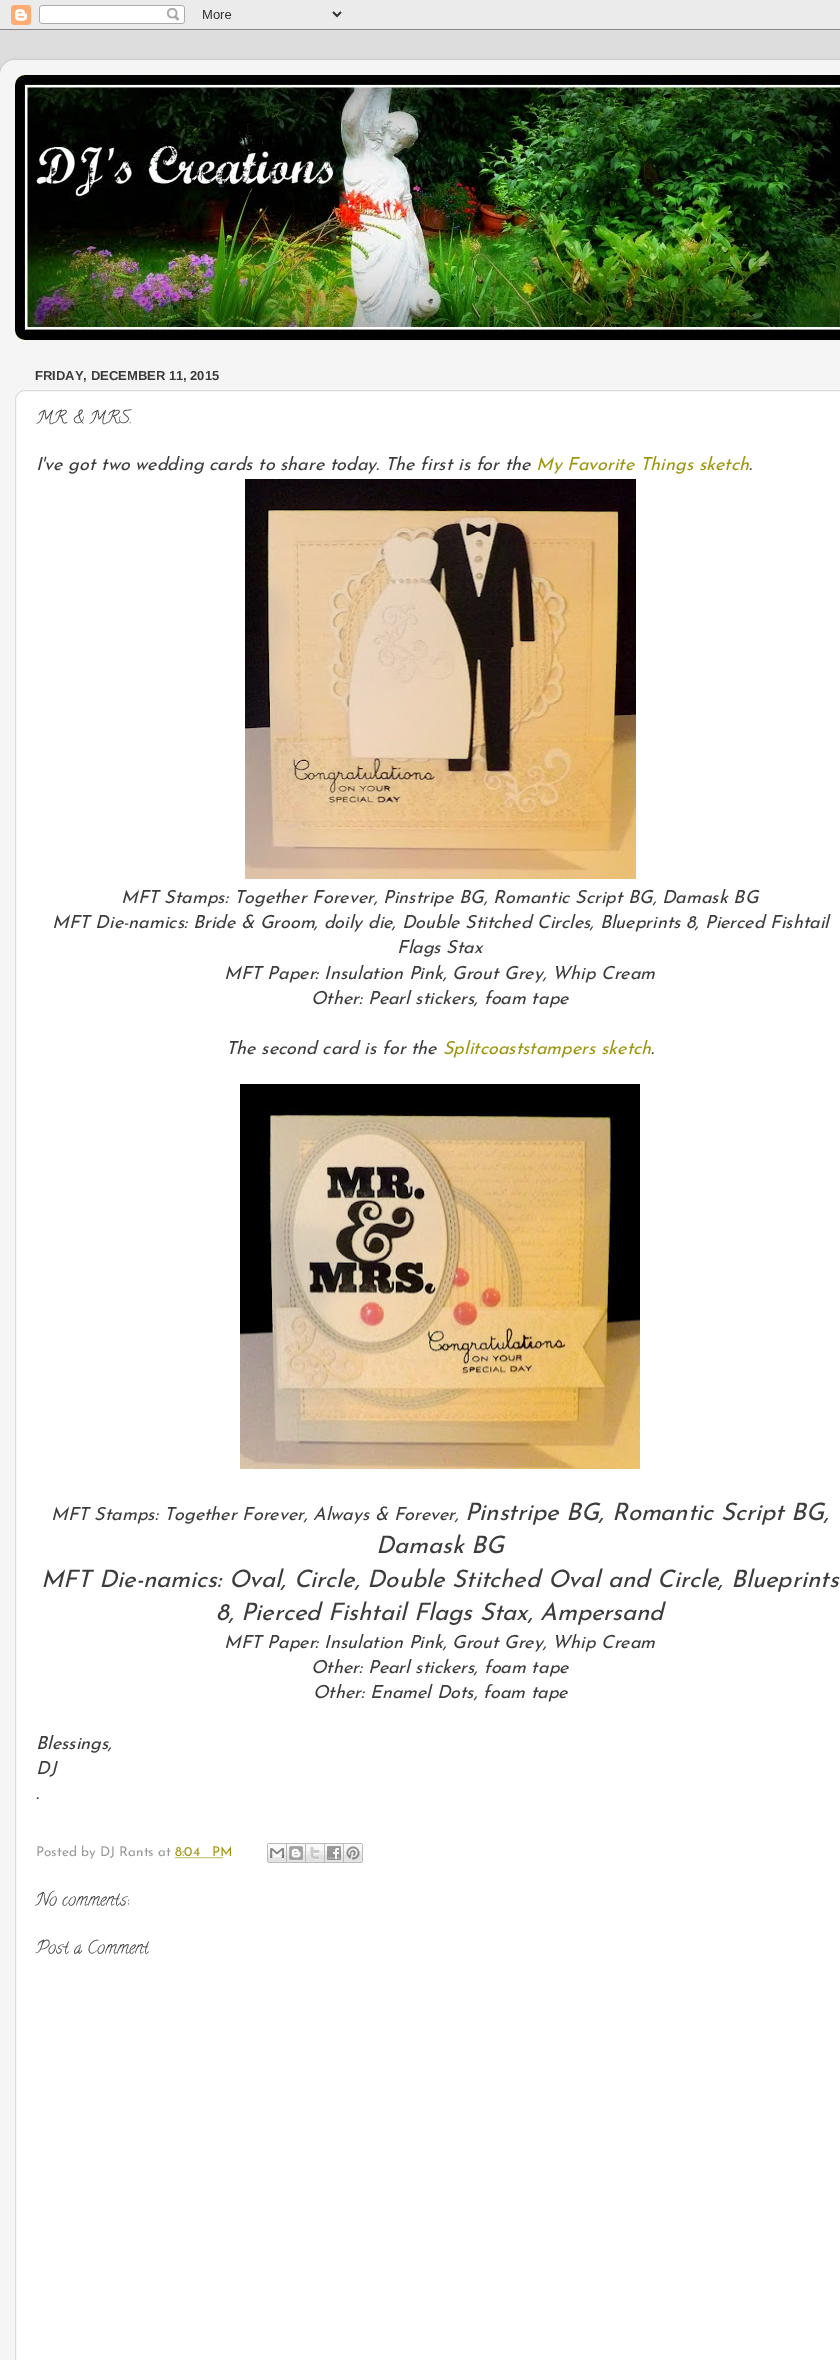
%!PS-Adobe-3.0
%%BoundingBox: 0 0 840 2360
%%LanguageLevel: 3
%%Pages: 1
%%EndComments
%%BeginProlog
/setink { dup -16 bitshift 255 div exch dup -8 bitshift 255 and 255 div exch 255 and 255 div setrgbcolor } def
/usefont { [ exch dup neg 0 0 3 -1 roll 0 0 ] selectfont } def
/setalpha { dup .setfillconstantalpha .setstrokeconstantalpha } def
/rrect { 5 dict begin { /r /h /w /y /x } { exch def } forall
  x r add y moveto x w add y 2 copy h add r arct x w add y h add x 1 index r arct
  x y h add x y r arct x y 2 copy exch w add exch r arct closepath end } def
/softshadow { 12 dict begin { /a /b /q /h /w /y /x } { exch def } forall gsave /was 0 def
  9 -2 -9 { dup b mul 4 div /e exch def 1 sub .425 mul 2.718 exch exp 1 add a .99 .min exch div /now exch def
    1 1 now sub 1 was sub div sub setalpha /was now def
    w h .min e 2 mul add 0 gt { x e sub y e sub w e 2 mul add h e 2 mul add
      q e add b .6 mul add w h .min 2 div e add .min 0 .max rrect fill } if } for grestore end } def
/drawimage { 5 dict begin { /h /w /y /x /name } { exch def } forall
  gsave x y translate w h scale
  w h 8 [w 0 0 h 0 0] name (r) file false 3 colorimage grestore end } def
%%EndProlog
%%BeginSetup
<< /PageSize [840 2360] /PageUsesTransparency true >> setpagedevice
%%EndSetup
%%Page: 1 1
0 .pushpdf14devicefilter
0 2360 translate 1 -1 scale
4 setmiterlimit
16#DDDDDD setink
0 0 840 2360 rectfill
(img1.raw) 0 0 840 30 drawimage
gsave
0 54 moveto 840 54 lineto 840 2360 lineto 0 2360 lineto closepath 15 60 moveto 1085 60 lineto 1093.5 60 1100 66.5 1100 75 curveto 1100 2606 lineto 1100 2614.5 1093.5 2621 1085 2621 curveto 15 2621 lineto 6.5 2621 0 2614.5 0 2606 curveto 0 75 lineto 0 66.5 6.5 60 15 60 curveto closepath eoclip newpath
16#000000 setink
0 60 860 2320 15 1.5 0.15 softshadow
grestore
(img2.raw) 0 60 840 2300 drawimage
16#9F9611 setink
15 75 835 265 10 rrect fill
(img3.raw) 15 75 10 10 drawimage
(img4.raw) 15 75 825 265 drawimage
/LiberationSans-Bold 13 usefont
16#3C3C3C setink
35 380 moveto (FRIDAY, DECEMBER 11, 2015) show
16#FFFFFF setink
15.5 390.5 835 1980 9.5 rrect gsave fill grestore
16#DDDDDD setink
stroke
/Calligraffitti-Regular 18 usefont
16#3C3C3C setink
36 423 moveto (MR. & MRS.) show
/JosefinSans-ThinItalic 18 usefont
36 470 moveto (I've got two wedding cards to share today. The first is for the) show
16#9F9611 setink
536 470 moveto (My Favorite Things sketch) show
16#3C3C3C setink
749 470 moveto (.) show
(img5.raw) 245 479 391 400 drawimage
[
    [(MFT Stamps: Together Forever, Pinstripe BG, Romantic Script BG, Damask BG) 121 903]
    [(MFT Die-namics: Bride & Groom, doily die, Double Stitched Circles, Blueprints 8, Pierced Fishtail) 52 928]
    [(Flags Stax) 397 953]
    [(MFT Paper: Insulation Pink, Grout Grey, Whip Cream) 224 979]
    [(Other: Pearl stickers, foam tape) 311 1004]
    [(The second card is for the) 226 1054]
] { aload pop moveto show } forall
16#9F9611 setink
443 1054 moveto (Splitcoaststampers sketch) show
16#3C3C3C setink
651 1054 moveto (.) show
(img6.raw) 240 1084 400 385 drawimage
51 1520 moveto (MFT Stamps: Together Forever, Always & Forever,) show
/JosefinSans-ThinItalic 24 usefont
[
    [(Pinstripe BG, Romantic Script BG,) 465 1520]
    [(Damask BG) 376 1553]
    [(MFT Die-namics: Oval, Circle, Double Stitched Oval and Circle, Blueprints) 41 1587]
    [(8, Pierced Fishtail Flags Stax, Ampersand) 216 1620]
] { aload pop moveto show } forall
/JosefinSans-ThinItalic 18 usefont
[
    [(MFT Paper: Insulation Pink, Grout Grey, Whip Cream) 224 1648]
    [(Other: Pearl stickers, foam tape) 311 1673]
    [(Other: Enamel Dots, foam tape) 313 1698]
    [(Blessings,) 36 1749]
    [(DJ) 36 1774]
    [(.) 36 1799]
] { aload pop moveto show } forall
/JosefinSans-Thin 13.5 usefont
16#9A9A9A setink
36 1856 moveto (Posted by DJ Rants at) show
16#9F9611 setink
175 1856 moveto (8:04 PM) show
[1 1] 0 setdash
175.5 1857.5 moveto 223 1857.5 lineto stroke
(img7.raw) 267 1843 20 20 drawimage
(img8.raw) 287 1843 19 20 drawimage
(img9.raw) 306 1843 19 20 drawimage
(img10.raw) 325 1843 19 20 drawimage
(img11.raw) 344 1843 19 20 drawimage
/Calligraffitti-Regular 18 usefont
16#3C3C3C setink
36 1905 moveto (No comments:) show
36 1953 moveto (Post a Comment) show
.poppdf14devicefilter showpage
%%EOF
